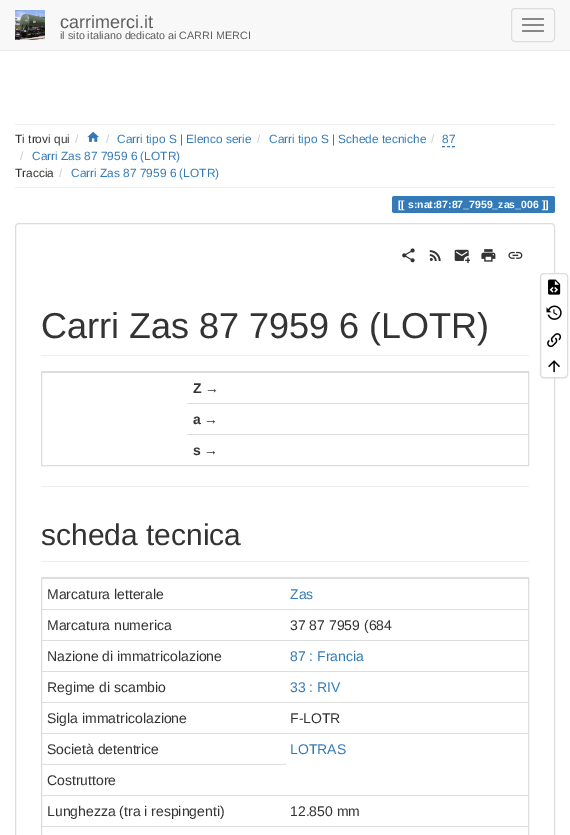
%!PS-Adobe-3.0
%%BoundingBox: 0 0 570 835
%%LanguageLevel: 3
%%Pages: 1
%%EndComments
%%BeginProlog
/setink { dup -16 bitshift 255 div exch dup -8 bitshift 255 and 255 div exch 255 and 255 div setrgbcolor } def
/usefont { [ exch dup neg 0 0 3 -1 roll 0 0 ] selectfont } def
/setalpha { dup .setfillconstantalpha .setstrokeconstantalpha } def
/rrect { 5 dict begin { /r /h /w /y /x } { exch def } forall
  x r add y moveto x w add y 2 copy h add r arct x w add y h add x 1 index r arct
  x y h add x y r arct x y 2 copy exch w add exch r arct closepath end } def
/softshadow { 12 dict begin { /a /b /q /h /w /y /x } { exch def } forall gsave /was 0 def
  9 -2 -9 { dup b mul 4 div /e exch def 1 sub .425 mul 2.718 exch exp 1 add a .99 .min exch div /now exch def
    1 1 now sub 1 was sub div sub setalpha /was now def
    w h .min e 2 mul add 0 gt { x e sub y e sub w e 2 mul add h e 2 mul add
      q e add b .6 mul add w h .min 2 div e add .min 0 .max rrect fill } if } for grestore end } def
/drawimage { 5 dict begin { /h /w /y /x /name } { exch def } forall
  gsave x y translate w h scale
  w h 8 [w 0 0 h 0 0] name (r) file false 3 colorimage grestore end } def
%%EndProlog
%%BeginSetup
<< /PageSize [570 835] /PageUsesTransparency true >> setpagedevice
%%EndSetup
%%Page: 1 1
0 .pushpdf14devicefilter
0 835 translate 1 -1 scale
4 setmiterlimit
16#FFFFFF setink
0 0 570 835 rectfill
16#F8F8F8 setink
0 0 570 50 rectfill
16#E7E7E7 setink
0 50 570 1 rectfill
(img1.raw) 15 10 30 30 drawimage
/LiberationSans-Regular 18 usefont
16#5E5E5E setink
60 28 moveto (carrimerci.it) show
/LiberationSans-Regular 10.75 usefont
60 39 moveto (il sito italiano dedicato ai CARRI MERCI) show
16#DDDDDD setink
511.5 8.5 43 33 3.5 rrect stroke
16#888888 setink
522 18 22 2 1 rrect fill
522 24 22 2 1 rrect fill
522 30 22 2 1 rrect fill
16#EEEEEE setink
15 124 540 1 rectfill
/LiberationSans-Regular 11.9 usefont
16#333333 setink
15 143 moveto (Ti trovi qui) show
16#CCCCCC setink
75 143 moveto (/) show
(img2.raw) 87 131 12 11 drawimage
106 143 moveto (/) show
16#337AB7 setink
117 143 moveto (Carri tipo S | Elenco serie) show
16#CCCCCC setink
257 143 moveto (/) show
16#337AB7 setink
269 143 moveto (Carri tipo S | Schede tecniche) show
16#CCCCCC setink
431 143 moveto (/) show
16#337AB7 setink
442 143 moveto (87) show
442 146.5 moveto 445 146.5 lineto 447 146.5 moveto 450 146.5 lineto 452 146.5 moveto 455 146.5 lineto stroke
16#CCCCCC setink
20 160 moveto (/) show
16#337AB7 setink
32 160 moveto (Carri Zas 87 7959 6 \(LOTR\)) show
16#333333 setink
15 177 moveto (Traccia) show
16#CCCCCC setink
59 177 moveto (/) show
16#337AB7 setink
71 177 moveto (Carri Zas 87 7959 6 \(LOTR\)) show
16#EEEEEE setink
15 187 540 1 rectfill
16#337AB7 setink
394.5 196 moveto 408 196 lineto 408 213 lineto 394.5 213 lineto 393 213 392 212 392 210.5 curveto 392 198.5 lineto 392 197 393 196 394.5 196 curveto closepath fill
408 196 131 17 rectfill
539 196 moveto 552.5 196 lineto 554 196 555 197 555 198.5 curveto 555 210.5 lineto 555 212 554 213 552.5 213 curveto 539 213 lineto closepath fill
/LiberationSans-Bold 10.5 usefont
16#FFFFFF setink
398 208 moveto ([[ s:nat:87:87_7959_zas_006 ]]) show
16#DDDDDD setink
15.5 223.5 539 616 3.5 rrect stroke
(img3.raw) 402 248 13 15 drawimage
(img4.raw) 429 250 12 11 drawimage
(img5.raw) 454 249 16 14 drawimage
(img6.raw) 481 249 15 13 drawimage
(img7.raw) 508 251 15 8 drawimage
16#EEEEEE setink
41 355 488 1 rectfill
/LiberationSans-Regular 36 usefont
16#333333 setink
41 338 moveto (Carri Zas 87 7959 6 \(LOTR\)) show
16#DDDDDD setink
41.5 371.5 487 94 rectstroke
42 372 486 1 rectfill
/LiberationSans-Bold 14 usefont
16#333333 setink
193 393 moveto (Z) show
/LiberationSans-Regular 14 usefont
205 393 moveto (→) show
16#DDDDDD setink
187 403 341 1 rectfill
/LiberationSans-Bold 14 usefont
16#333333 setink
193 424 moveto (a) show
/LiberationSans-Regular 14 usefont
204 424 moveto (→) show
16#DDDDDD setink
187 434 341 1 rectfill
/LiberationSans-Bold 14 usefont
16#333333 setink
193 455 moveto (s) show
/LiberationSans-Regular 14 usefont
204 455 moveto (→) show
16#EEEEEE setink
41 486 488 1 rectfill
41 561 488 1 rectfill
/LiberationSans-Regular 30 usefont
16#333333 setink
41 545 moveto (scheda tecnica) show
16#DDDDDD setink
41.5 577.5 487 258 rectstroke
/LiberationSans-Regular 14 usefont
16#333333 setink
47 599 moveto (Marcatura letterale) show
16#DDDDDD setink
42 578 486 1 rectfill
16#337AB7 setink
290 599 moveto (Zas) show
16#333333 setink
47 630 moveto (Marcatura numerica) show
16#DDDDDD setink
42 609 486 1 rectfill
16#333333 setink
290 630 moveto (37 87 7959 \(684) show
47 661 moveto (Nazione di immatricolazione) show
16#DDDDDD setink
42 640 486 1 rectfill
16#337AB7 setink
290 661 moveto (87 : Francia) show
16#333333 setink
47 692 moveto (Regime di scambio) show
16#DDDDDD setink
42 671 486 1 rectfill
16#337AB7 setink
290 692 moveto (33 : RIV) show
16#333333 setink
47 723 moveto (Sigla immatricolazione) show
16#DDDDDD setink
42 702 486 1 rectfill
16#333333 setink
290 723 moveto (F-LOTR) show
47 754 moveto (Società detentrice) show
16#DDDDDD setink
42 733 486 1 rectfill
16#337AB7 setink
290 754 moveto (LOTRAS) show
16#DDDDDD setink
42 764 244 1 rectfill
16#333333 setink
47 785 moveto (Costruttore) show
47 816 moveto (Lunghezza \(tra i respingenti\)) show
16#DDDDDD setink
42 795 486 1 rectfill
16#333333 setink
290 816 moveto (12.850 mm) show
16#DDDDDD setink
42 826 486 1 rectfill
16#000000 setink
540 274 28 105 4 0.5 0.05 softshadow
16#FFFFFF setink
540.5 273.5 27 104 3.5 rrect gsave fill grestore
16#DDDDDD setink
stroke
(img8.raw) 548 279 13 16 drawimage
(img9.raw) 546 305 16 15 drawimage
(img10.raw) 547 333 15 15 drawimage
(img11.raw) 548 360 12 13 drawimage
.poppdf14devicefilter showpage
%%EOF
